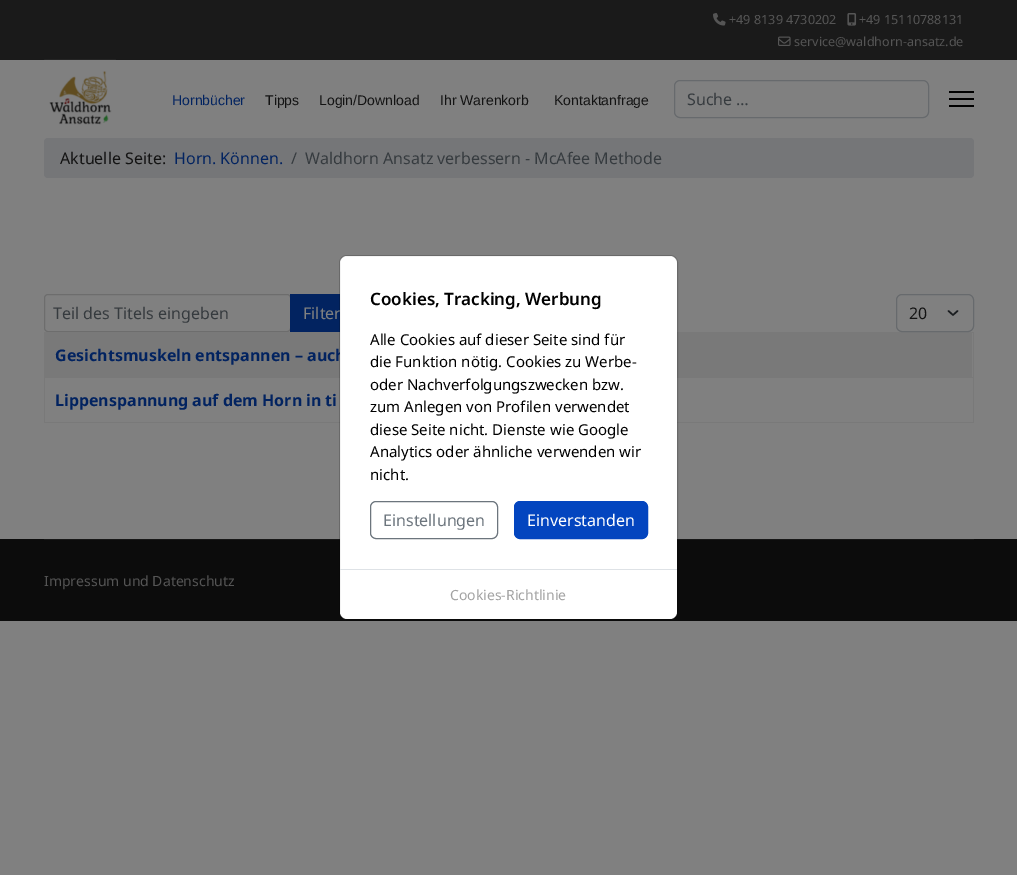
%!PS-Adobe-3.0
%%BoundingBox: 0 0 1017 875
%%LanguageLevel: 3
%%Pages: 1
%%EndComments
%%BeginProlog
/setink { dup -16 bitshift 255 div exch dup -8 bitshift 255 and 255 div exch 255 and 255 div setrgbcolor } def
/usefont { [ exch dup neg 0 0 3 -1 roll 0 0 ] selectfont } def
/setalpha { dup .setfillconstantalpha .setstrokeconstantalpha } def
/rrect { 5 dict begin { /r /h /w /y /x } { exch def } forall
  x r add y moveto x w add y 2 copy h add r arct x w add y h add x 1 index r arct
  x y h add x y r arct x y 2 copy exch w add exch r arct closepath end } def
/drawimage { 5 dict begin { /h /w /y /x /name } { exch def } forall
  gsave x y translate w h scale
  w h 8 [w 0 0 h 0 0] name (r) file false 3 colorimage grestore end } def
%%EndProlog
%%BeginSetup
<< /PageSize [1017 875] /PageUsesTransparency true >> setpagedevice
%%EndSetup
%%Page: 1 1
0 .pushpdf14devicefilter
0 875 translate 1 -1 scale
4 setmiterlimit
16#808080 setink
0 0 1017 875 rectfill
16#1A1A1A setink
0 0 1017 60 rectfill
(img1.raw) 713 13 13 13 drawimage
/NotoSans-Regular 12.6 usefont
16#555555 setink
729 24 moveto (+49 8139 4730202) show
(img2.raw) 847 13 10 13 drawimage
859 24 moveto (+49 15110788131) show
(img3.raw) 778 36 13 10 drawimage
794 46 moveto (service@waldhorn-ansatz.de) show
(img4.raw) 44 59 72 66 drawimage
/LiberationSans-Regular 14 usefont
16#022360 setink
172 105 moveto (Hornbücher) show
16#131313 setink
[
    [(Tipps) 265 105]
    [(Login/Download) 319 105]
    [(Ihr Warenkorb) 440 105]
    [(Kontaktanfrage) 554 105]
] { aload pop moveto show } forall
16#676A6D setink
674.5 80.5 254 37 5.5 rrect stroke
/NotoSans-Regular 16 usefont
16#363B3F setink
687 105 moveto (Suche …) show
[
    [949 91 25 2 16#000000]
    [949 98 25 2 16#000000]
    [949 105 25 2 16#000000]
] { aload pop setink rectfill } forall
16#757678 setink
44 138 930 40 4 rrect fill
16#131313 setink
60 164 moveto (Aktuelle Seite:) show
16#022360 setink
174 164 moveto (Horn. Können.) show
16#363B3F setink
291 164 moveto (/) show
305 164 moveto (Waldhorn Ansatz verbessern - McAfee Methode) show
16#0C0C0C setink
0 539 1017 82 rectfill
16#171717 setink
44 539 930 1 rectfill
/NotoSans-Regular 14 usefont
16#555555 setink
44 586 moveto (Impressum und Datenschutz) show
16#6D6D6D setink
44.5 294.5 246 37 3.5 rrect stroke
16#022360 setink
290 294 50 38 rectfill
/NotoSans-Regular 16 usefont
16#808080 setink
303 319 moveto (Filter) show
16#797979 setink
44 332 930 1 rectfill
45 333 927 44 rectfill
/NotoSans-Bold 16 usefont
16#022360 setink
55 361 moveto (Gesichtsmuskeln entspannen – auch) show
[
    [44 377 930 1 16#797979]
    [973 377 1 46 16#797979]
    [44 422 930 1 16#797979]
] { aload pop setink rectfill } forall
16#FFFFFF setink
340 256 337 363 7 rrect fill
0.18 setalpha
16#000000 setink
339.5 255.5 338 364 7.5 rrect stroke
/NotoSans-SemiBold 17 usefont
1 setalpha
370 305 moveto (Cookies, Tracking, Werbung) show
/NotoSans-Regular 15 usefont
[
    [(Alle Cookies auf dieser Seite sind für) 370 345]
    [(die Funktion nötig. Cookies zu Werbe-) 370 367]
    [(oder Nachverfolgungszwecken bzw.) 370 390]
    [(zum Anlegen von Profilen verwendet) 370 412]
    [(diese Seite nicht. Dienste wie Google) 370 435]
    [(Analytics oder ähnliche verwenden wir) 370 457]
    [(nicht.) 370 480]
] { aload pop moveto show } forall
16#6C757D setink
370.5 501.5 127 37 5.5 rrect stroke
/NotoSans-Regular 16 usefont
383 526 moveto (Einstellungen) show
16#0345BF setink
514.5 501.5 133 37 5.5 rrect gsave fill grestore
stroke
16#FFFFFF setink
527 526 moveto (Einverstanden) show
16#DEE2E6 setink
340 569 337 1 rectfill
/NotoSans-Regular 14 usefont
16#A2A2A2 setink
450 600 moveto (Cookies-Richtlinie) show
/NotoSans-Regular 16 usefont
16#363B3F setink
53 319 moveto (Teil des Titels eingeben) show
16#1A1D20 setink
1.5 setlinewidth
1 setlinecap
1 setlinejoin
948.5 311 moveto 953 315 lineto 957.5 311 lineto stroke
16#676A6D setink
1 setlinewidth
0 setlinecap
0 setlinejoin
896.5 294.5 77 37 5.5 rrect stroke
16#131313 setink
909 319 moveto (20) show
[
    [973 332 1 46 16#797979]
    [44 377 1 46 16#797979]
    [44 332 1 46 16#797979]
] { aload pop setink rectfill } forall
/NotoSans-Bold 16 usefont
16#022360 setink
55 406 moveto (Lippenspannung auf dem Horn in ti) show
.poppdf14devicefilter showpage
%%EOF
